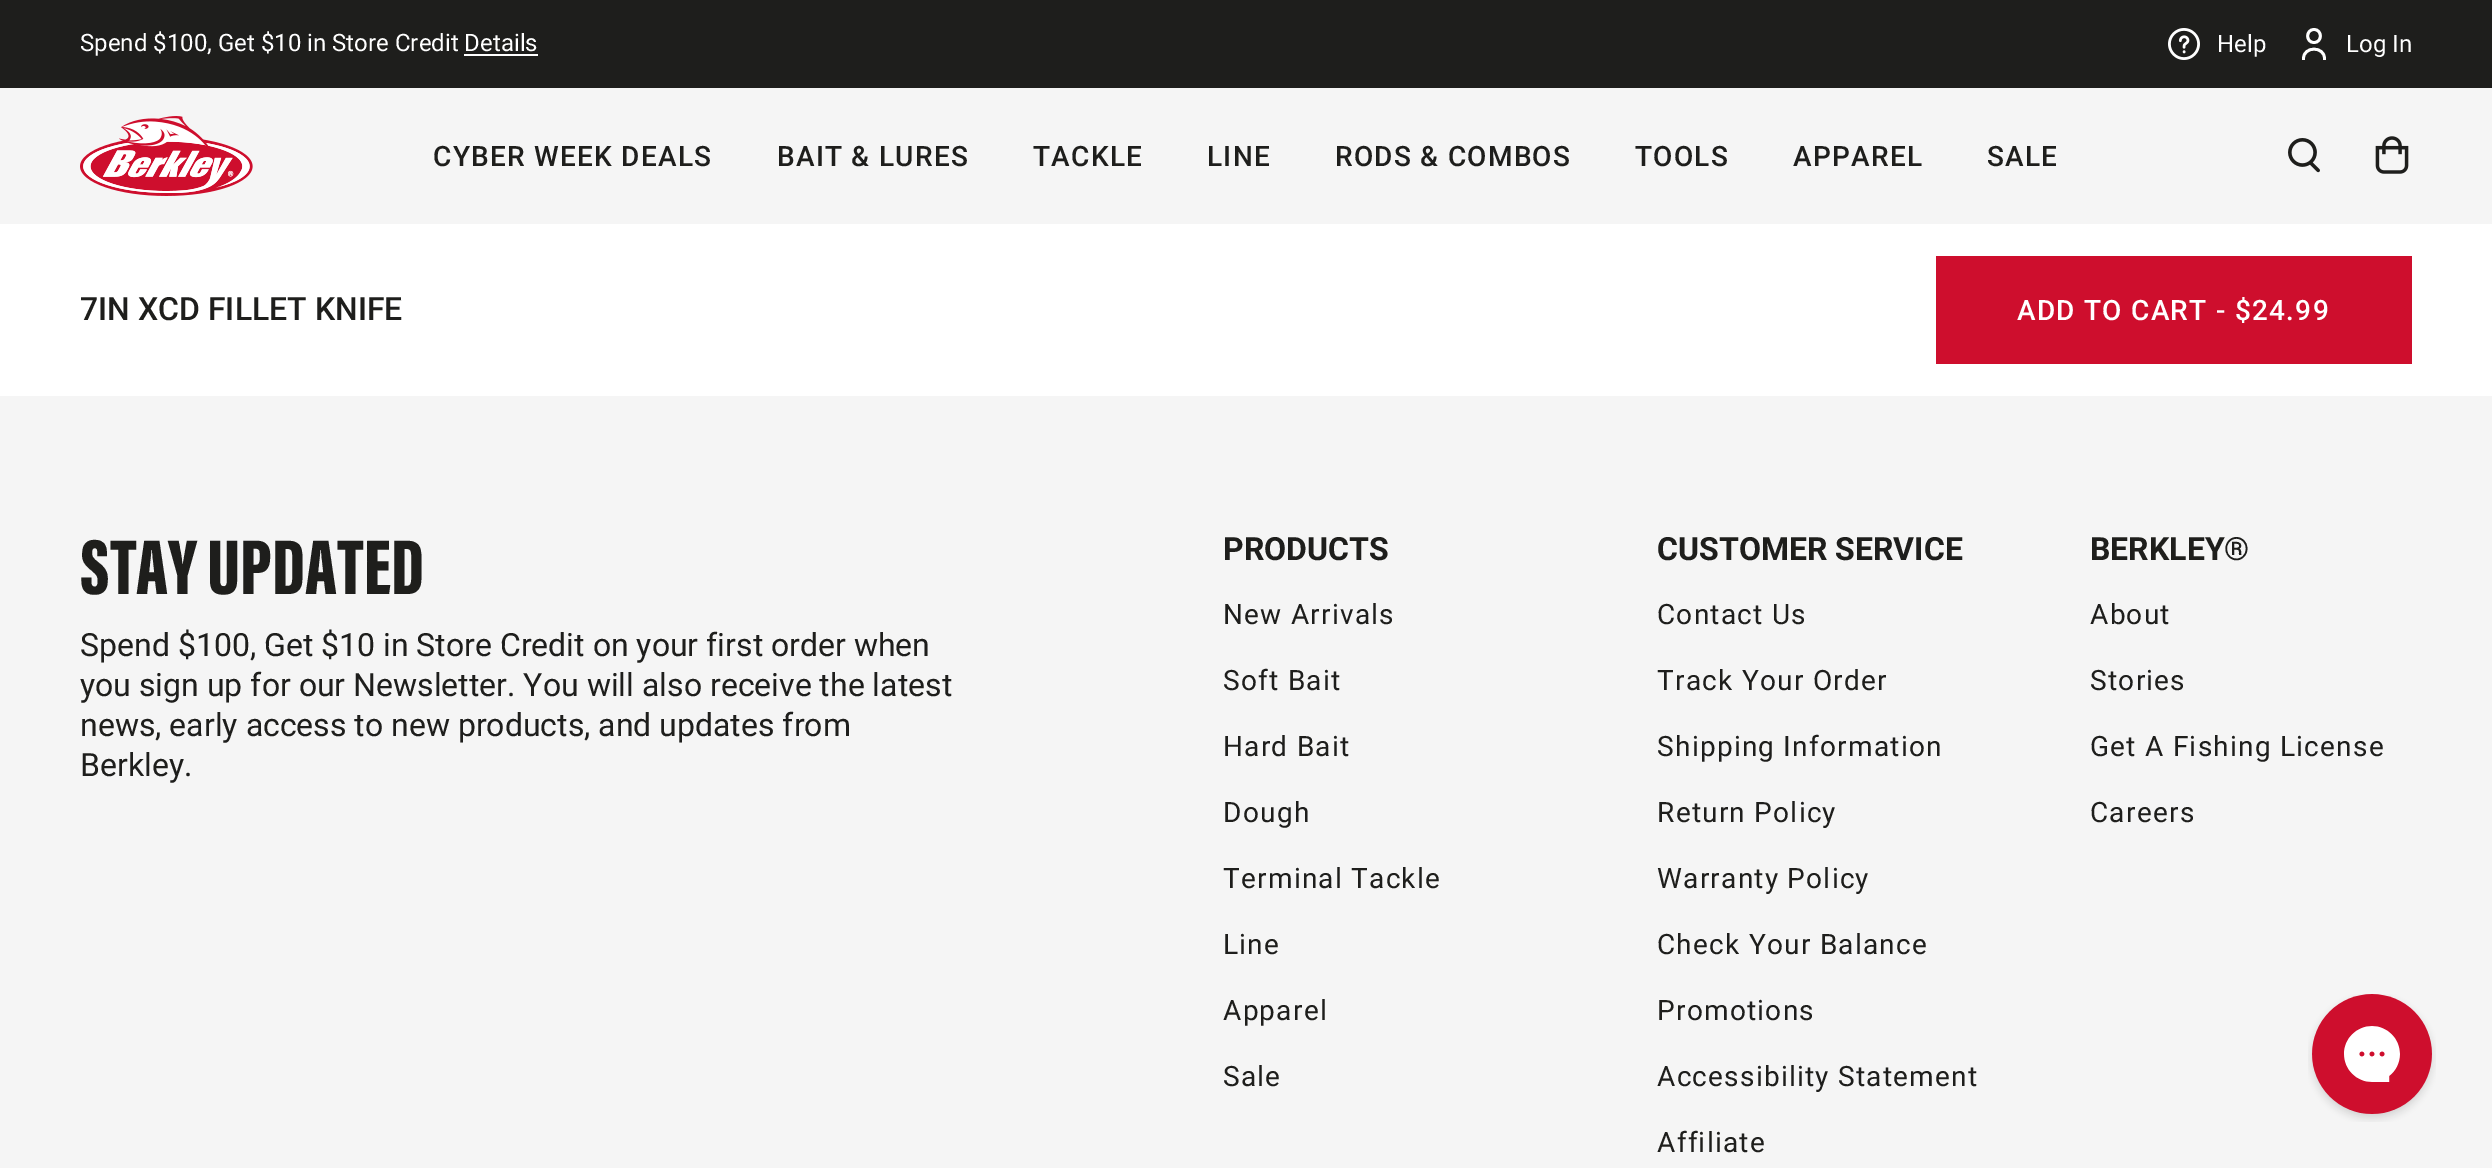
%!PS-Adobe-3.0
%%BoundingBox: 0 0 2492 1168
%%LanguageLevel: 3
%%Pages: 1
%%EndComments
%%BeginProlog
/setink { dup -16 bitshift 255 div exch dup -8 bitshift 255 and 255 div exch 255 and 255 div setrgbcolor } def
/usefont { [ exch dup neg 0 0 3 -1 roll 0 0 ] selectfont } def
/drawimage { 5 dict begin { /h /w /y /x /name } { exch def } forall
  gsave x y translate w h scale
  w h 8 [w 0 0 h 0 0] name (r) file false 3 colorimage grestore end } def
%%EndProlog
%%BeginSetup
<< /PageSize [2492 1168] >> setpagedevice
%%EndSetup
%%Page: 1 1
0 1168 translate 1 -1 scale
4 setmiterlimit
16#F5F5F5 setink
0 0 2492 1168 rectfill
16#1E1E1C setink
0 0 2492 88 rectfill
/Roboto-Regular 24 usefont
16#FFFFFF setink
80 51 moveto (Spend $100, Get $10 in Store Credit Details) show
464 54 74 2 rectfill
(img1.raw) 2168 28 32 32 drawimage
2217 52 moveto (Help) show
2.8 setlinewidth
2314 42.5 moveto 2322.5 42.5 2322.5 29.5 2314 29.5 curveto 2305.5 29.5 2305.5 42.5 2314 42.5 curveto closepath stroke
2 setlinecap
2324.5 58.5 moveto 2324.5 46 2303.5 46 2303.5 58.5 curveto stroke
2346 52 moveto (Log In) show
(img2.raw) 80 116 173 80 drawimage
/Roboto-Medium 28 usefont
16#1E1E1C setink
433 166 moveto 1.25 0 (CYBER WEEK DEALS) ashow
777 166 moveto 1.25 0 (BAIT & LURES) ashow
1033 166 moveto 1.25 0 (TACKLE) ashow
1207 166 moveto 1.25 0 (LINE) ashow
1335 166 moveto 1.25 0 (RODS & COMBOS) ashow
1635 166 moveto 1.25 0 (TOOLS) ashow
1793 166 moveto 1.25 0 (APPAREL) ashow
1987 166 moveto 1.25 0 (SALE) ashow
(img3.raw) 2288 138 32 35 drawimage
(img4.raw) 2375 136 34 38 drawimage
16#FFFFFF setink
0 224 2492 172 rectfill
/Roboto-Medium 32 usefont
16#1E1E1C setink
80 320 moveto (7IN XCD FILLET KNIFE) show
16#CE0E2D setink
1936 256 476 108 rectfill
/Roboto-Medium 28 usefont
16#FFFFFF setink
2017 320 moveto 1.25 0 (ADD TO CART - $24.99) ashow
/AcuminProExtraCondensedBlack-Black 80 usefont
16#1E1E1C setink
80 594 moveto (STAY UPDATED) show
/Roboto-Regular 32 usefont
[
    [(Spend $100, Get $10 in Store Credit on your first order when) 80 656]
    [(you sign up for our Newsletter. You will also receive the latest) 80 696]
    [(news, early access to new products, and updates from) 80 736]
    [(Berkley.) 80 776]
] { aload pop moveto show } forall
/Roboto-Bold 32 usefont
1223 560 moveto (PRODUCTS) show
/Roboto-Regular 28 usefont
1223 624 moveto 1.25 0 (New Arrivals) ashow
1223 690 moveto 1.25 0 (Soft Bait) ashow
1223 756 moveto 1.25 0 (Hard Bait) ashow
1223 822 moveto 1.25 0 (Dough) ashow
1223 888 moveto 1.25 0 (Terminal Tackle) ashow
1223 954 moveto 1.25 0 (Line) ashow
1223 1020 moveto 1.25 0 (Apparel) ashow
1223 1086 moveto 1.25 0 (Sale) ashow
/Roboto-Bold 32 usefont
1657 560 moveto (CUSTOMER SERVICE) show
/Roboto-Regular 28 usefont
1657 624 moveto 1.25 0 (Contact Us) ashow
1657 690 moveto 1.25 0 (Track Your Order) ashow
1657 756 moveto 1.25 0 (Shipping Information) ashow
1657 822 moveto 1.25 0 (Return Policy) ashow
1657 888 moveto 1.25 0 (Warranty Policy) ashow
1657 954 moveto 1.25 0 (Check Your Balance) ashow
1657 1020 moveto 1.25 0 (Promotions) ashow
1657 1086 moveto 1.25 0 (Accessibility Statement) ashow
1657 1152 moveto 1.25 0 (Affiliate) ashow
/Roboto-Bold 32 usefont
2090 560 moveto (BERKLEY®) show
/Roboto-Regular 28 usefont
2090 624 moveto 1.25 0 (About) ashow
2090 690 moveto 1.25 0 (Stories) ashow
2090 756 moveto 1.25 0 (Get A Fishing License) ashow
2090 822 moveto 1.25 0 (Careers) ashow
(img5.raw) 2308 994 128 128 drawimage
showpage
%%EOF
